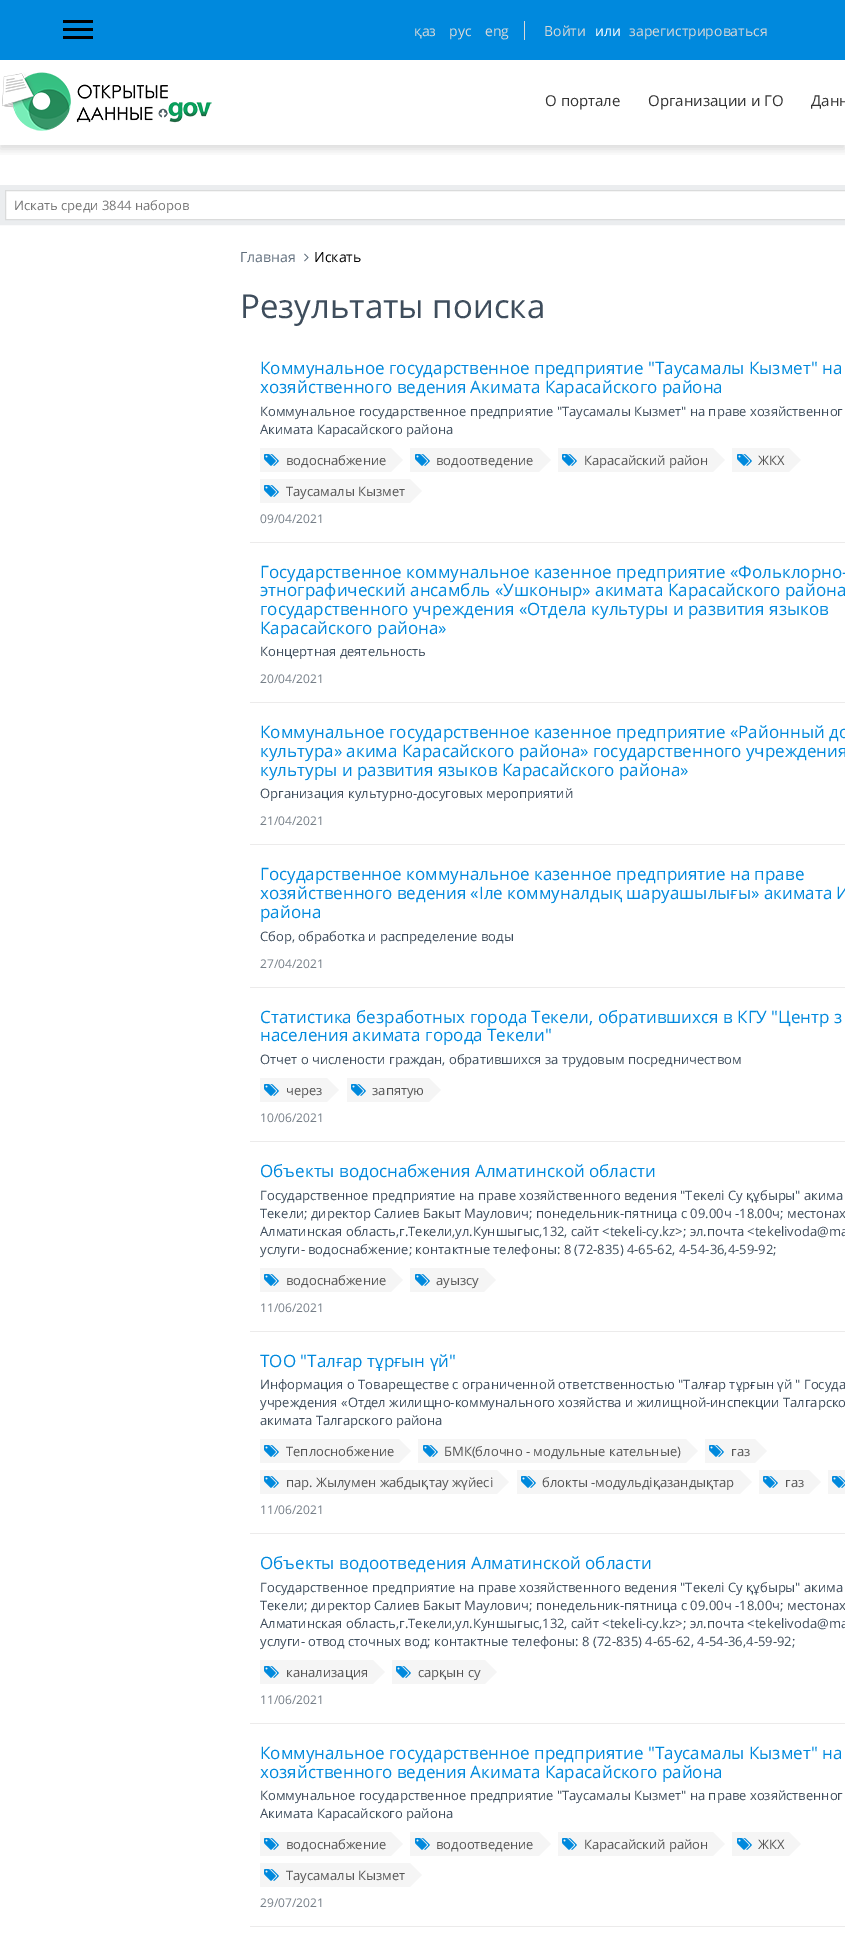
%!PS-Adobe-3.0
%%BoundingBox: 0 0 845 1943
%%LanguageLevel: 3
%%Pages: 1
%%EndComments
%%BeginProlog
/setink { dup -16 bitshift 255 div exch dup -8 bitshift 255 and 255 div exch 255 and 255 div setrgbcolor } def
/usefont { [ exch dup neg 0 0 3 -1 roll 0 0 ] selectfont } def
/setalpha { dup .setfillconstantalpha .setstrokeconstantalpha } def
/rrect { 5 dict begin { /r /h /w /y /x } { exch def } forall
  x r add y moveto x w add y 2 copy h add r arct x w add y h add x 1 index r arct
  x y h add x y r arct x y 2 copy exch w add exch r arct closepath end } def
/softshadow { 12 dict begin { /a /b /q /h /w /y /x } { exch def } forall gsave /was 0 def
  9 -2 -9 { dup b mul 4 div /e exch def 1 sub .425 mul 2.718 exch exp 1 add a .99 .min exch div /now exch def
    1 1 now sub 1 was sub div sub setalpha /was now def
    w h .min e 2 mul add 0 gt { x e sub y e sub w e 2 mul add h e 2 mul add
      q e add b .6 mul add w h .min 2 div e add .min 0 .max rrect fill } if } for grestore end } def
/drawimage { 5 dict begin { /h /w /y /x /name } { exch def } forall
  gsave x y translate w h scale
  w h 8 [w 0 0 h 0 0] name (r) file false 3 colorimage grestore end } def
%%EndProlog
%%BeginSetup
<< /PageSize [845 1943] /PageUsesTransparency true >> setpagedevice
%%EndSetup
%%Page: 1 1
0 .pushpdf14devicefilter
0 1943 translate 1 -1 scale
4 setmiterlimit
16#FFFFFF setink
0 0 845 1943 rectfill
gsave
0 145 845 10 rectclip
16#000000 setink
0 4 845 145 0 5 0.15 softshadow
grestore
[
    [0 0 845 60 16#0089DD]
    [63 20 30 3 16#000000]
    [63 28 30 3 16#000000]
    [63 36 30 3 16#000000]
    [524 21 1 19 16#D8D8D8]
] { aload pop setink rectfill } forall
/OpenSans-Regular 14 usefont
[
    [(қаз) 414 36]
    [(рус) 449 36]
    [(eng) 485 36]
    [(Войти) 544 36]
] { aload pop moveto show } forall
16#FFFFFF setink
595 36 moveto (или) show
16#D8D8D8 setink
629 36 moveto (зарегистрироваться) show
(img1.raw) 2 72 210 59 drawimage
/OpenSans-Regular 15 usefont
16#333333 setink
[
    [(О портале) 545 106]
    [(Организации и ГО) 648 106]
    [(Данн) 811 106]
] { aload pop moveto show } forall
16#EBEDEF setink
5 setlinewidth
2.5 187.5 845 35 rectstroke
16#DADBDB setink
1 setlinewidth
5.5 190.5 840 29 rectstroke
/OpenSans-Regular 13 usefont
16#757575 setink
14 210 moveto (Искать среди 3844 наборов) show
/OpenSans-Regular 14 usefont
16#5F6D7B setink
240 262 moveto (Главная) show
(img2.raw) 304 253 5 9 drawimage
16#000000 setink
314 262 moveto (Искать) show
/OpenSans-Regular 33 usefont
16#3E4D5C setink
240 318 moveto (Результаты поиска) show
16#ECEBEB setink
250 542 595 1 rectfill
/OpenSans-Regular 17 usefont
16#0089DD setink
260 374 moveto (Коммунальное государственное предприятие "Таусамалы Кызмет" на) show
260 393 moveto (хозяйственного ведения Акимата Карасайского района) show
/OpenSans-Regular 13 usefont
16#3E4D5C setink
260 416 moveto (Коммунальное государственное предприятие "Таусамалы Кызмет" на праве хозяйственног) show
260 434 moveto (Акимата Карасайского района) show
16#F5F5F5 setink
260 448 131 24 rectfill
(img3.raw) 264 454 15 12 drawimage
16#555555 setink
286 465 moveto (водоснабжение) show
16#F5F5F5 setink
391 472 moveto 391 448 lineto 403 460 lineto closepath fill
410 448 129 24 rectfill
(img3.raw) 415 454 15 12 drawimage
16#555555 setink
436 465 moveto (водоотведение) show
16#F5F5F5 setink
539 472 moveto 539 448 lineto 551 460 lineto closepath fill
558 448 155 24 rectfill
(img3.raw) 562 454 15 12 drawimage
16#555555 setink
584 465 moveto (Карасайский район) show
16#F5F5F5 setink
713 472 moveto 713 448 lineto 725 460 lineto closepath fill
732 448 57 24 rectfill
(img3.raw) 737 454 15 12 drawimage
16#555555 setink
758 465 moveto (ЖКХ) show
16#F5F5F5 setink
789 472 moveto 789 448 lineto 801 460 lineto closepath fill
260 479 150 24 rectfill
(img3.raw) 264 485 15 12 drawimage
16#555555 setink
286 496 moveto (Таусамалы Кызмет) show
16#F5F5F5 setink
410 503 moveto 410 479 lineto 422 491 lineto closepath fill
/OpenSans-Regular 12 usefont
16#767F88 setink
260 523 moveto (09/04/2021) show
16#ECEBEB setink
250 702 595 1 rectfill
/OpenSans-Regular 17 usefont
16#0089DD setink
[
    [(Государственное коммунальное казенное предприятие «Фольклорно-) 260 578]
    [(этнографический ансамбль «Ушконыр» акимата Карасайского района) 260 596]
    [(государственного учреждения «Отдела культуры и развития языков) 260 615]
    [(Карасайского района») 260 634]
] { aload pop moveto show } forall
/OpenSans-Regular 13 usefont
16#3E4D5C setink
260 656 moveto (Концертная деятельность) show
/OpenSans-Regular 12 usefont
16#767F88 setink
260 683 moveto (20/04/2021) show
16#ECEBEB setink
250 844 595 1 rectfill
/OpenSans-Regular 17 usefont
16#0089DD setink
[
    [(Коммунальное государственное казенное предприятие «Районный до) 260 738]
    [(культура» акима Карасайского района» государственного учреждения) 260 757]
    [(культуры и развития языков Карасайского района») 260 776]
] { aload pop moveto show } forall
/OpenSans-Regular 13 usefont
16#3E4D5C setink
260 798 moveto (Организация культурно-досуговых мероприятий) show
/OpenSans-Regular 12 usefont
16#767F88 setink
260 825 moveto (21/04/2021) show
16#ECEBEB setink
250 987 595 1 rectfill
/OpenSans-Regular 17 usefont
16#0089DD setink
[
    [(Государственное коммунальное казенное предприятие на праве) 260 880]
    [(хозяйственного ведения «Іле коммуналдық шаруашылығы» акимата И) 260 899]
    [(района) 260 918]
] { aload pop moveto show } forall
/OpenSans-Regular 13 usefont
16#3E4D5C setink
260 941 moveto (Сбор, обработка и распределение воды) show
/OpenSans-Regular 12 usefont
16#767F88 setink
260 968 moveto (27/04/2021) show
16#ECEBEB setink
250 1141 595 1 rectfill
/OpenSans-Regular 17 usefont
16#0089DD setink
260 1023 moveto (Статистика безработных города Текели, обратившихся в КГУ "Центр з) show
260 1041 moveto (населения акимата города Текели") show
/OpenSans-Regular 13 usefont
16#3E4D5C setink
260 1064 moveto (Отчет о числености граждан, обратившихся за трудовым посредничеством) show
16#F5F5F5 setink
260 1078 67 24 rectfill
(img3.raw) 264 1084 15 12 drawimage
16#555555 setink
286 1095 moveto (через) show
16#F5F5F5 setink
327 1102 moveto 327 1078 lineto 339 1090 lineto closepath fill
347 1078 82 24 rectfill
(img3.raw) 351 1084 15 12 drawimage
16#555555 setink
372 1095 moveto (запятую) show
16#F5F5F5 setink
429 1102 moveto 429 1078 lineto 441 1090 lineto closepath fill
/OpenSans-Regular 12 usefont
16#767F88 setink
260 1122 moveto (10/06/2021) show
16#ECEBEB setink
250 1331 595 1 rectfill
/OpenSans-Regular 17 usefont
16#0089DD setink
260 1177 moveto (Объекты водоснабжения Алматинской области) show
/OpenSans-Regular 13 usefont
16#3E4D5C setink
[
    [(Государственное предприятие на праве хозяйственного ведения "Текелі Су құбыры" акима) 260 1200]
    [(Текели; директор Салиев Бакыт Маулович; понедельник-пятница с 09.00ч -18.00ч; местонах) 260 1218]
    [(Алматинская область,г.Текели,ул.Куншыгыс,132, сайт <tekeli-су.kz>; эл.почта <tekelivoda@ma) 260 1236]
    [(услуги- водоснабжение; контактные телефоны: 8 \(72-835\) 4-65-62, 4-54-36,4-59-92;) 260 1254]
] { aload pop moveto show } forall
16#F5F5F5 setink
260 1268 131 24 rectfill
(img3.raw) 264 1274 15 12 drawimage
16#555555 setink
286 1285 moveto (водоснабжение) show
16#F5F5F5 setink
391 1292 moveto 391 1268 lineto 403 1280 lineto closepath fill
410 1268 74 24 rectfill
(img3.raw) 415 1274 15 12 drawimage
16#555555 setink
436 1285 moveto (ауызсу) show
16#F5F5F5 setink
484 1292 moveto 484 1268 lineto 496 1280 lineto closepath fill
/OpenSans-Regular 12 usefont
16#767F88 setink
260 1312 moveto (11/06/2021) show
16#ECEBEB setink
250 1533 595 1 rectfill
/OpenSans-Regular 17 usefont
16#0089DD setink
260 1367 moveto (ТОО "Талғар тұрғын үй") show
/OpenSans-Regular 13 usefont
16#3E4D5C setink
[
    [(Информация о Товареществе с ограниченной ответственностью "Талғар тұрғын үй " Госуда) 260 1389]
    [(учреждения «Отдел жилищно-коммунального хозяйства и жилищной-инспекции Талгарско) 260 1407]
    [(акимата Талгарского района) 260 1425]
] { aload pop moveto show } forall
16#F5F5F5 setink
260 1439 139 24 rectfill
(img3.raw) 264 1445 15 12 drawimage
16#555555 setink
286 1456 moveto (Теплоснобжение) show
16#F5F5F5 setink
399 1463 moveto 399 1439 lineto 411 1451 lineto closepath fill
418 1439 268 24 rectfill
(img3.raw) 423 1445 15 12 drawimage
16#555555 setink
444 1456 moveto (БМК\(блочно - модульные кательные\)) show
16#F5F5F5 setink
686 1463 moveto 686 1439 lineto 698 1451 lineto closepath fill
705 1439 50 24 rectfill
(img3.raw) 709 1445 15 12 drawimage
16#555555 setink
731 1456 moveto (газ) show
16#F5F5F5 setink
755 1463 moveto 755 1439 lineto 767 1451 lineto closepath fill
260 1470 237 24 rectfill
(img3.raw) 264 1476 15 12 drawimage
16#555555 setink
286 1487 moveto (пар. Жылумен жабдықтау жүйесі) show
16#F5F5F5 setink
497 1494 moveto 497 1470 lineto 509 1482 lineto closepath fill
517 1470 223 24 rectfill
(img3.raw) 521 1476 15 12 drawimage
16#555555 setink
542 1487 moveto (блокты -модульдіқазандықтар) show
16#F5F5F5 setink
740 1494 moveto 740 1470 lineto 752 1482 lineto closepath fill
759 1470 50 24 rectfill
(img3.raw) 763 1476 15 12 drawimage
16#555555 setink
785 1487 moveto (газ) show
16#F5F5F5 setink
809 1494 moveto 809 1470 lineto 821 1482 lineto closepath fill
828 1470 17 24 rectfill
(img4.raw) 832 1476 13 12 drawimage
/OpenSans-Regular 12 usefont
16#767F88 setink
260 1514 moveto (11/06/2021) show
16#ECEBEB setink
250 1723 595 1 rectfill
/OpenSans-Regular 17 usefont
16#0089DD setink
260 1569 moveto (Объекты водоотведения Алматинской области) show
/OpenSans-Regular 13 usefont
16#3E4D5C setink
[
    [(Государственное предприятие на праве хозяйственного ведения "Текелі Су құбыры" акима) 260 1592]
    [(Текели; директор Салиев Бакыт Маулович; понедельник-пятница с 09.00ч -18.00ч; местонах) 260 1610]
    [(Алматинская область,г.Текели,ул.Куншыгыс,132, сайт <tekeli-су.kz>; эл.почта <tekelivoda@ma) 260 1628]
    [(услуги- отвод сточных вод; контактные телефоны: 8 \(72-835\) 4-65-62, 4-54-36,4-59-92;) 260 1646]
] { aload pop moveto show } forall
16#F5F5F5 setink
260 1660 113 24 rectfill
(img3.raw) 264 1666 15 12 drawimage
16#555555 setink
286 1677 moveto (канализация) show
16#F5F5F5 setink
373 1684 moveto 373 1660 lineto 385 1672 lineto closepath fill
392 1660 93 24 rectfill
(img3.raw) 396 1666 15 12 drawimage
16#555555 setink
418 1677 moveto (сарқын су) show
16#F5F5F5 setink
485 1684 moveto 485 1660 lineto 497 1672 lineto closepath fill
/OpenSans-Regular 12 usefont
16#767F88 setink
260 1704 moveto (11/06/2021) show
16#ECEBEB setink
250 1926 595 1 rectfill
/OpenSans-Regular 17 usefont
16#0089DD setink
260 1759 moveto (Коммунальное государственное предприятие "Таусамалы Кызмет" на) show
260 1778 moveto (хозяйственного ведения Акимата Карасайского района) show
/OpenSans-Regular 13 usefont
16#3E4D5C setink
260 1800 moveto (Коммунальное государственное предприятие "Таусамалы Кызмет" на праве хозяйственног) show
260 1818 moveto (Акимата Карасайского района) show
16#F5F5F5 setink
260 1832 131 24 rectfill
(img3.raw) 264 1838 15 12 drawimage
16#555555 setink
286 1849 moveto (водоснабжение) show
16#F5F5F5 setink
391 1856 moveto 391 1832 lineto 403 1844 lineto closepath fill
410 1832 129 24 rectfill
(img3.raw) 415 1838 15 12 drawimage
16#555555 setink
436 1849 moveto (водоотведение) show
16#F5F5F5 setink
539 1856 moveto 539 1832 lineto 551 1844 lineto closepath fill
558 1832 155 24 rectfill
(img3.raw) 562 1838 15 12 drawimage
16#555555 setink
584 1849 moveto (Карасайский район) show
16#F5F5F5 setink
713 1856 moveto 713 1832 lineto 725 1844 lineto closepath fill
732 1832 57 24 rectfill
(img3.raw) 737 1838 15 12 drawimage
16#555555 setink
758 1849 moveto (ЖКХ) show
16#F5F5F5 setink
789 1856 moveto 789 1832 lineto 801 1844 lineto closepath fill
260 1863 150 24 rectfill
(img3.raw) 264 1869 15 12 drawimage
16#555555 setink
286 1880 moveto (Таусамалы Кызмет) show
16#F5F5F5 setink
410 1887 moveto 410 1863 lineto 422 1875 lineto closepath fill
/OpenSans-Regular 12 usefont
16#767F88 setink
260 1907 moveto (29/07/2021) show
.poppdf14devicefilter showpage
%%EOF
